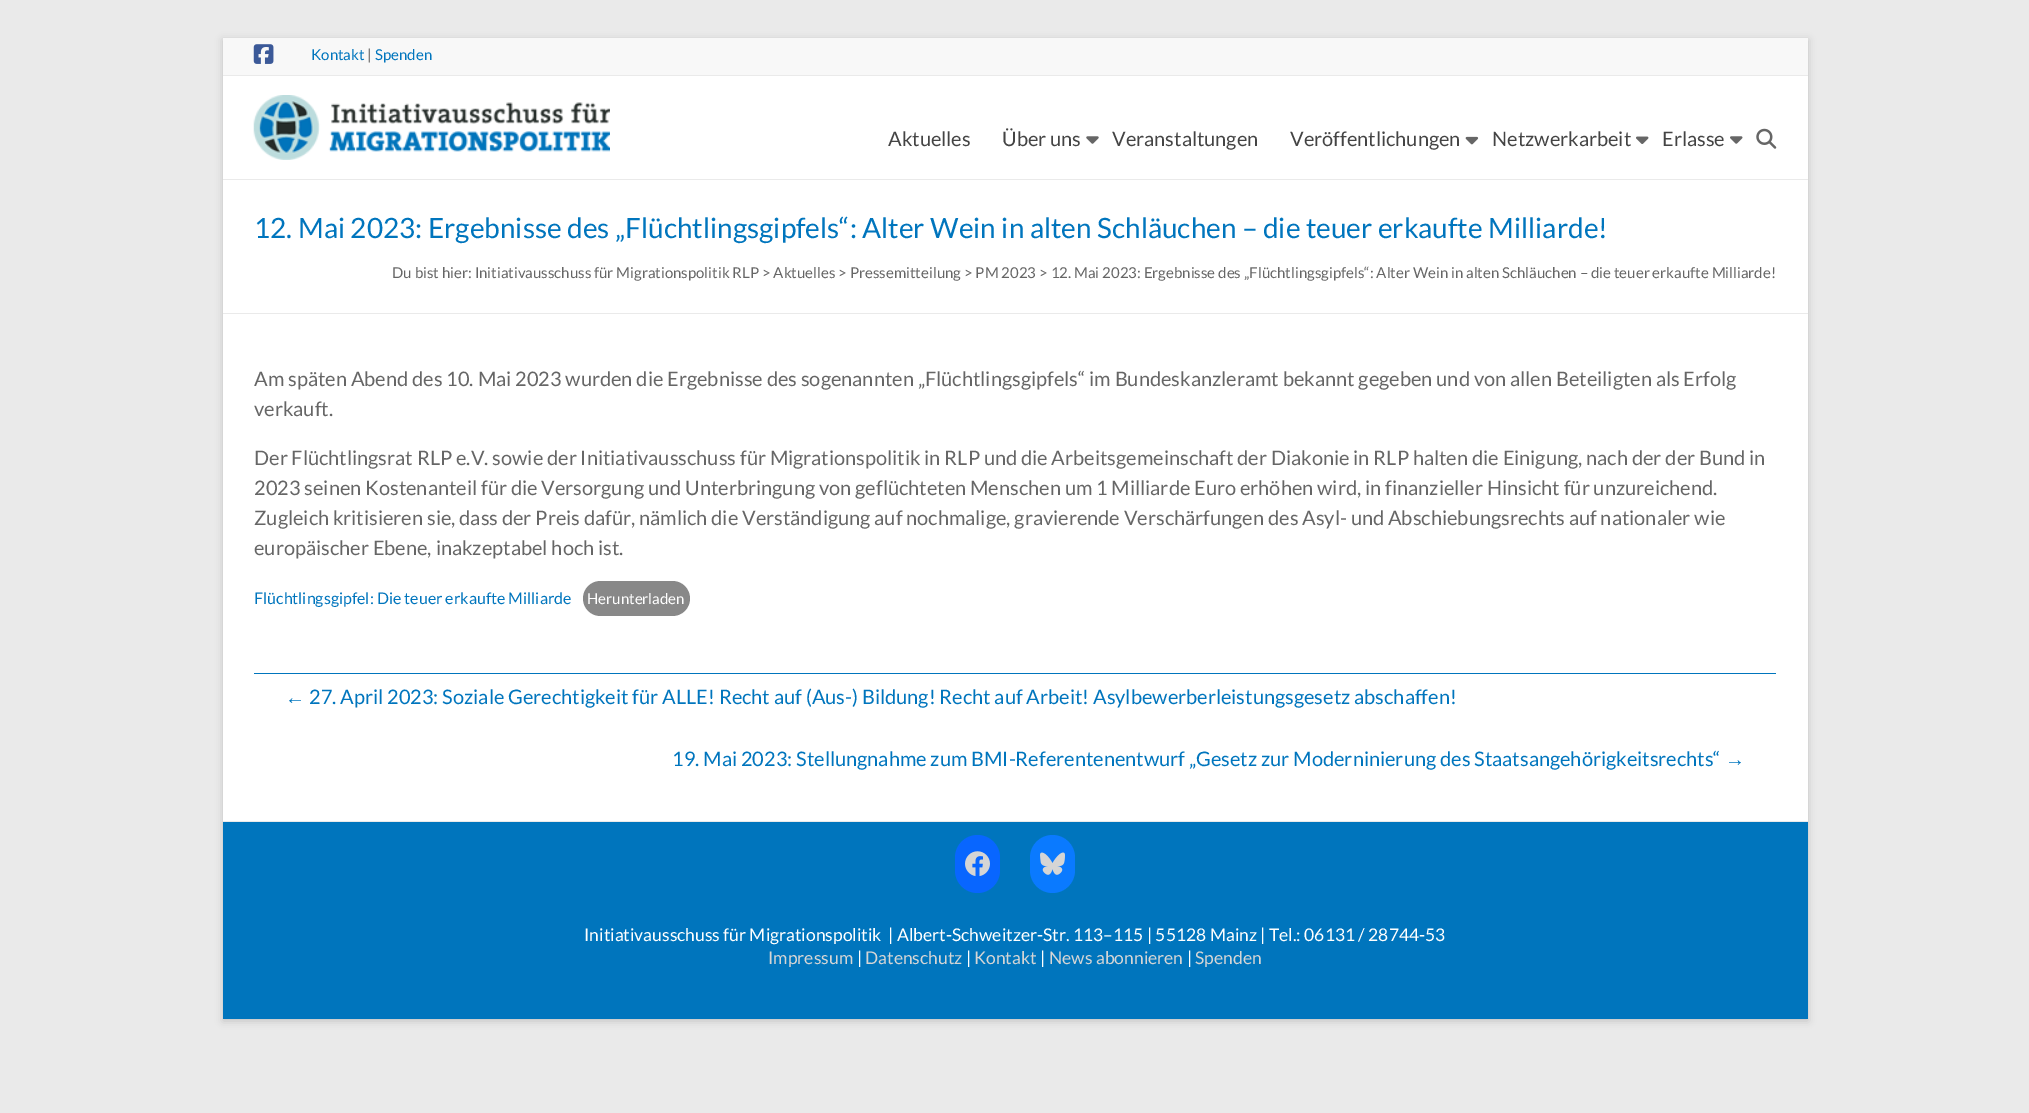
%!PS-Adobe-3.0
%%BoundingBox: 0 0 2029 1113
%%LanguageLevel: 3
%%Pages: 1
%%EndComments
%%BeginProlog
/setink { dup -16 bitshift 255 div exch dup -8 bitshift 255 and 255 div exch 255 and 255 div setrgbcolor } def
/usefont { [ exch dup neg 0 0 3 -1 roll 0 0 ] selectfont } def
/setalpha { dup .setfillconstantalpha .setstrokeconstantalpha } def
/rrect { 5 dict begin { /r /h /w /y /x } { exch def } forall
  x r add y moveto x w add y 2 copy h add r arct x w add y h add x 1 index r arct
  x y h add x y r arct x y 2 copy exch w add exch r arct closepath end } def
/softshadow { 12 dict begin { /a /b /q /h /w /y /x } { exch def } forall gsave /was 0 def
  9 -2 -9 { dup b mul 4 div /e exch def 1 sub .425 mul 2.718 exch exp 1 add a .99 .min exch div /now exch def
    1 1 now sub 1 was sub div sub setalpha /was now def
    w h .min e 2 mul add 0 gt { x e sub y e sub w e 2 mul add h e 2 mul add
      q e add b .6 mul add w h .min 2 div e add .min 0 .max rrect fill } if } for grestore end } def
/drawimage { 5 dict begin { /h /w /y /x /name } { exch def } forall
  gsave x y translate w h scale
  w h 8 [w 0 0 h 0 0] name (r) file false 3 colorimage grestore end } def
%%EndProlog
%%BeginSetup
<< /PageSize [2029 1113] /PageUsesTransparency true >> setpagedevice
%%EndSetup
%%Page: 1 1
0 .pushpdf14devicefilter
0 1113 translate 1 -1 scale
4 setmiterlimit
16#EAEAEA setink
0 0 2029 1113 rectfill
16#646464 setink
223 40 1585 981 0 4 0.3 softshadow
[
    [223 76 1585 745 16#FFFFFF]
    [223 38 1585 37 16#F8F8F8]
    [223 75 1585 1 16#EAEAEA]
] { aload pop setink rectfill } forall
(img1.raw) 253 44 21 20 drawimage
/Lato-Regular 15 usefont
16#0075BD setink
311 60 moveto (Kontakt) show
16#555555 setink
367 60 moveto (|) show
16#0075BD setink
375 60 moveto (Spenden) show
16#EAEAEA setink
223 179 1585 1 rectfill
(img2.raw) 253 95 357 65 drawimage
/Lato-Regular 20 usefont
16#444444 setink
888 146 moveto (Aktuelles) show
1002 146 moveto (Über uns) show
(img3.raw) 1086 136 13 8 drawimage
1112 146 moveto (Veranstaltungen) show
1290 146 moveto (Veröffentlichungen) show
(img4.raw) 1465 136 14 9 drawimage
1492 146 moveto (Netzwerkarbeit) show
(img5.raw) 1636 136 13 8 drawimage
1662 146 moveto (Erlasse) show
(img6.raw) 1730 136 13 8 drawimage
(img7.raw) 1756 128 21 21 drawimage
16#EAEAEA setink
223 313 1585 1 rectfill
/Lato-Regular 28 usefont
16#0075BD setink
254 238 moveto (12. Mai 2023: Ergebnisse des „Flüchtlingsgipfels“: Alter Wein in alten Schläuchen – die teuer erkaufte Milliarde!) show
/Lato-Regular 15 usefont
16#666666 setink
392 278 moveto (Du bist hier: Initiativausschuss für Migrationspolitik RLP > Aktuelles > Pressemitteilung > PM 2023 > 12. Mai 2023: Ergebnisse des „Flüchtlingsgipfels“: Alter Wein in alten Schläuchen – die teuer erkaufte Milliarde!) show
/Lato-Regular 20 usefont
[
    [(Am späten Abend des 10. Mai 2023 wurden die Ergebnisse des sogenannten „Flüchtlingsgipfels“ im Bundeskanzleramt bekannt gegeben und von allen Beteiligten als Erfolg) 254 386]
    [(verkauft.) 254 416]
    [(Der Flüchtlingsrat RLP e.V. sowie der Initiativausschuss für Migrationspolitik in RLP und die Arbeitsgemeinschaft der Diakonie in RLP halten die Einigung, nach der der Bund in) 254 465]
    [(2023 seinen Kostenanteil für die Versorgung und Unterbringung von geflüchteten Menschen um 1 Milliarde Euro erhöhen wird, in finanzieller Hinsicht für unzureichend.) 254 495]
    [(Zugleich kritisieren sie, dass der Preis dafür, nämlich die Verständigung auf nochmalige, gravierende Verschärfungen des Asyl- und Abschiebungsrechts auf nationaler wie) 254 525]
    [(europäischer Ebene, inakzeptabel hoch ist.) 254 555]
] { aload pop moveto show } forall
/Lato-Regular 16 usefont
16#0075BD setink
254 604 moveto (Flüchtlingsgipfel: Die teuer erkaufte Milliarde) show
16#888888 setink
583 581 107 35 17.5 rrect fill
/Lato-Regular 15 usefont
16#FFFFFF setink
587 604 moveto (Herunterladen) show
16#0075BD setink
254 673 1522 1 rectfill
/LiberationSans-Regular 20 usefont
285 704 moveto (←) show
/Lato-Regular 20 usefont
309 704 moveto (27. April 2023: Soziale Gerechtigkeit für ALLE! Recht auf \(Aus-\) Bildung! Recht auf Arbeit! Asylbewerberleistungsgesetz abschaffen!) show
672 766 moveto (19. Mai 2023: Stellungnahme zum BMI-Referentenentwurf „Gesetz zur Moderninierung des Staatsangehörigkeitsrechts“) show
/LiberationSans-Regular 20 usefont
1725 766 moveto (→) show
223 822 1585 197 rectfill
16#EAEAEA setink
223 821 1585 1 rectfill
16#0866FF setink
955 835 45 58 22.5 rrect fill
(img8.raw) 965 851 25 26 drawimage
16#0A7AFF setink
1030 835 45 58 22.5 rrect fill
(img9.raw) 1040 852 25 23 drawimage
/Lato-Regular 17.5 usefont
16#FFFFFF setink
584 941 moveto (Initiativausschuss für Migrationspolitik  | Albert-Schweitzer-Str. 113–115 | 55128 Mainz | Tel.: 06131 / 28744-53) show
16#D5D5D5 setink
768 964 moveto (Impressum) show
16#FFFFFF setink
857 964 moveto (|) show
16#D5D5D5 setink
865 964 moveto (Datenschutz) show
16#FFFFFF setink
966 964 moveto (|) show
16#D5D5D5 setink
974 964 moveto (Kontakt) show
16#FFFFFF setink
1040 964 moveto (|) show
16#D5D5D5 setink
1049 964 moveto (News abonnieren) show
16#FFFFFF setink
1187 964 moveto (|) show
16#D5D5D5 setink
1195 964 moveto (Spenden) show
.poppdf14devicefilter showpage
%%EOF
